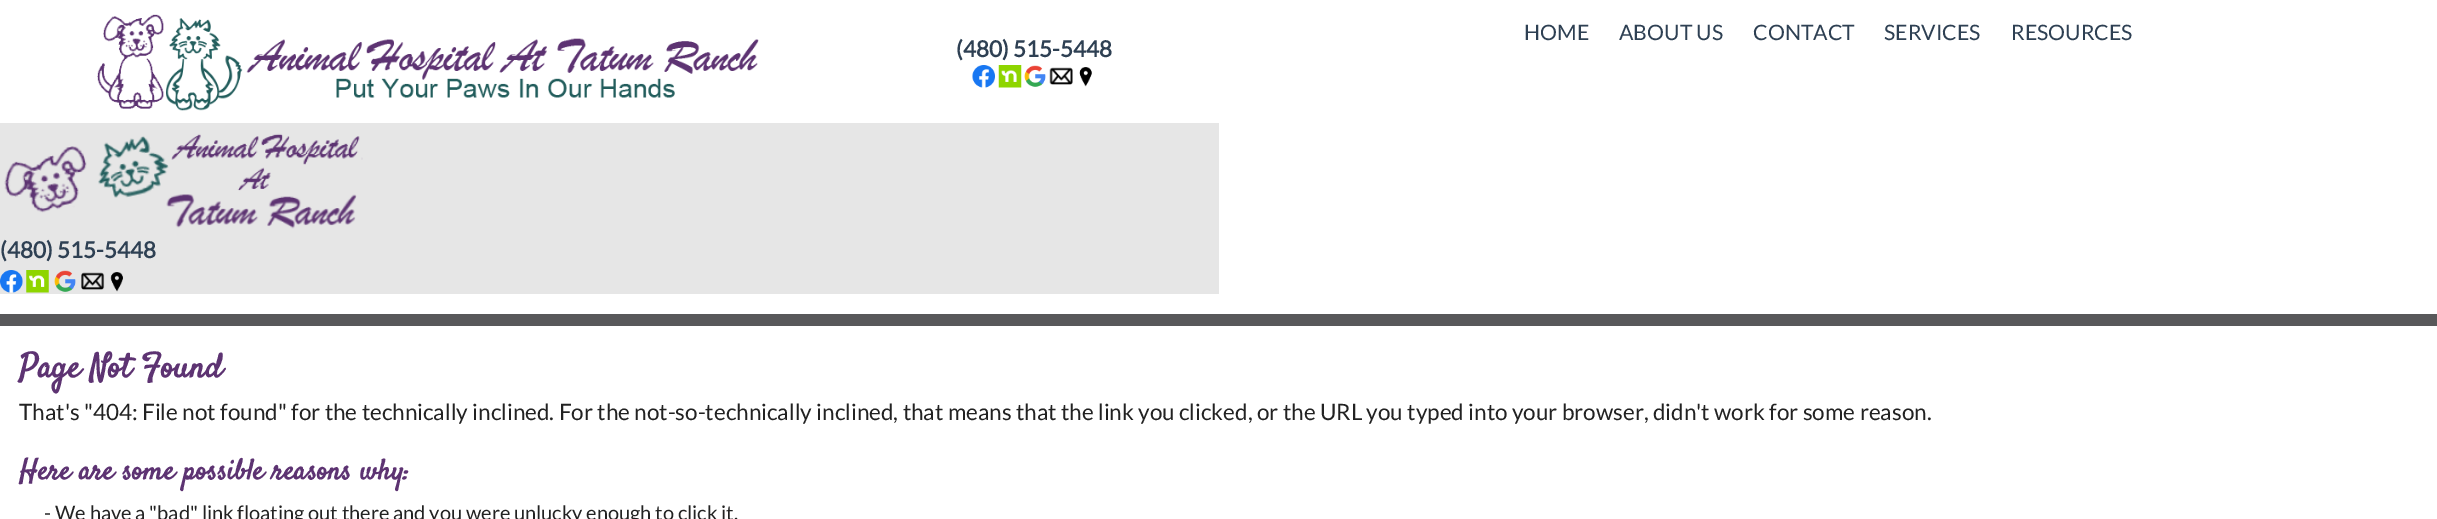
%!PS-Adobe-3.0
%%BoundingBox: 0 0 2437 519
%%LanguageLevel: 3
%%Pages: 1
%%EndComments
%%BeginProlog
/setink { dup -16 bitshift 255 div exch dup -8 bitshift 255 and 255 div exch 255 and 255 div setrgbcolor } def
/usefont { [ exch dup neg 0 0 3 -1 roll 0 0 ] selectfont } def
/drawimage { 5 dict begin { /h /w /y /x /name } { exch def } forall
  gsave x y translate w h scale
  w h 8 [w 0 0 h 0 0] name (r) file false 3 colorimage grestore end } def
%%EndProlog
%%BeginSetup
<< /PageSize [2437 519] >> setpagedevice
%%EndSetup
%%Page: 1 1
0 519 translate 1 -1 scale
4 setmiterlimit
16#FFFFFF setink
0 0 2437 519 rectfill
/Lato-Regular 21.25 usefont
16#2E4053 setink
[
    [(HOME) 1524 40]
    [(ABOUT US) 1619 40]
    [(CONTACT) 1753 40]
    [(SERVICES) 1884 40]
    [(RESOURCES) 2011 40]
] { aload pop moveto show } forall
(img1.raw) 97 14 662 97 drawimage
/Lato-Bold 22.5 usefont
956 57 moveto (\(480\) 515-5448) show
(img2.raw) 972 65 23 23 drawimage
(img3.raw) 998 65 24 23 drawimage
(img4.raw) 1024 65 22 22 drawimage
(img5.raw) 1049 67 24 18 drawimage
(img6.raw) 1079 67 13 20 drawimage
16#E6E6E6 setink
0 123 1219 171 rectfill
(img7.raw) 4 133 359 96 drawimage
16#2E4053 setink
0 258 moveto (\(480\) 515-5448) show
(img8.raw) 0 270 23 23 drawimage
(img9.raw) 26 270 23 23 drawimage
(img10.raw) 54 270 22 22 drawimage
(img11.raw) 81 272 24 18 drawimage
(img12.raw) 110 272 13 20 drawimage
16#58585A setink
0 314 2437 12 rectfill
/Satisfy-Bold 33.75 usefont
16#5D3372 setink
19 377 moveto (Page Not Found) show
/Lato-Regular 22.5 usefont
16#222222 setink
19 420 moveto (That's "404: File not found" for the technically inclined. For the not-so-technically inclined, that means that the link you clicked, or the URL you typed into your browser, didn't work for some reason.) show
/Satisfy-Bold 28.75 usefont
16#5D3372 setink
19 479 moveto (Here are some possible reasons why:) show
/Lato-Regular 20 usefont
16#222222 setink
44 520 moveto (- We have a "bad" link floating out there and you were unlucky enough to click it.) show
showpage
%%EOF
